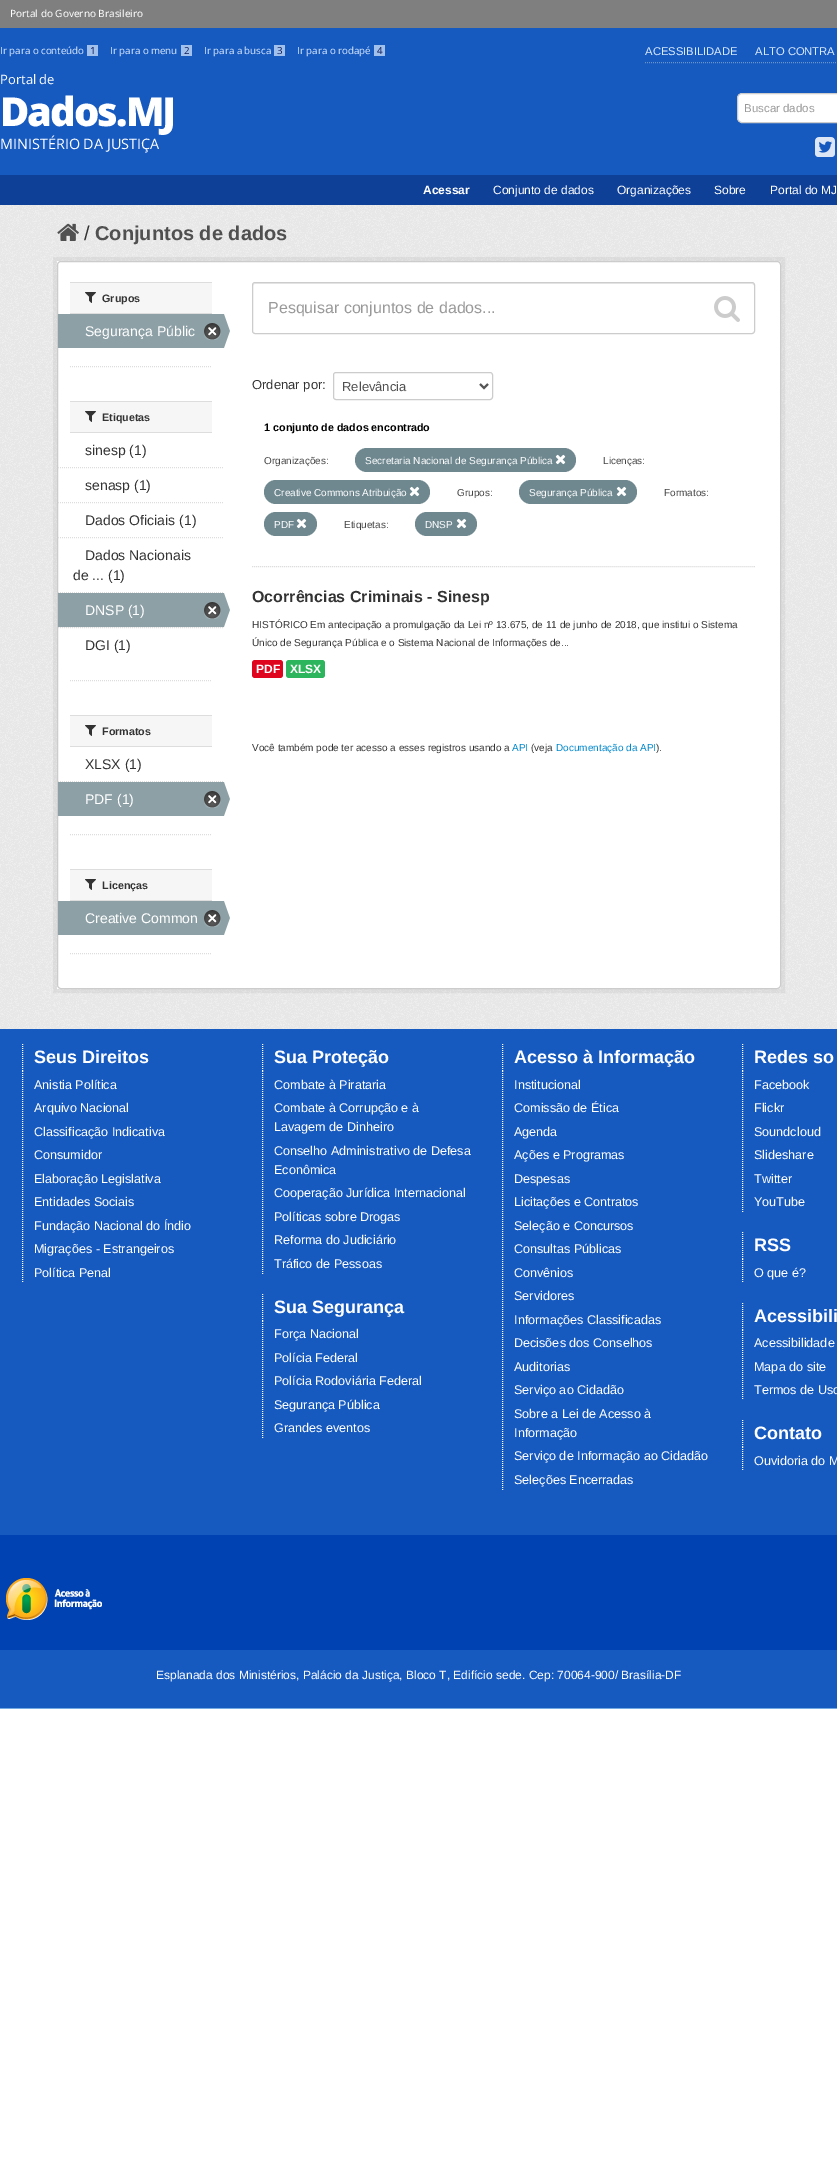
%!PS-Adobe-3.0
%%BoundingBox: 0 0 837 2163
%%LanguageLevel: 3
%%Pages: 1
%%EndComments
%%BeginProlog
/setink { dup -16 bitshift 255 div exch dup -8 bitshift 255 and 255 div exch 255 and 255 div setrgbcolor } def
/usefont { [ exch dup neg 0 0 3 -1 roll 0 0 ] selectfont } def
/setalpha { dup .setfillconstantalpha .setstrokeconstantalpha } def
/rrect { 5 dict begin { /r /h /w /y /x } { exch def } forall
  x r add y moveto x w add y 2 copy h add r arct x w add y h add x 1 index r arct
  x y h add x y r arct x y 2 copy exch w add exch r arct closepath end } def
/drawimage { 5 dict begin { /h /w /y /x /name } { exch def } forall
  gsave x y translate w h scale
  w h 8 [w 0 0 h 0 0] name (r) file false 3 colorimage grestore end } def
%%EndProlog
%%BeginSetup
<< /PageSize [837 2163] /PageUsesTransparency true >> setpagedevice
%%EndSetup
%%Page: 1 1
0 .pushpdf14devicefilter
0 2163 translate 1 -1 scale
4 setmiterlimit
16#FFFFFF setink
0 0 837 2163 rectfill
16#1659BF setink
0 28 837 147 rectfill
16#7F7F7F setink
0 0 837 28 rectfill
/NotoSans-Regular 10 usefont
16#FFFFFF setink
10 17 moveto (Portal do Governo Brasileiro) show
/OpenSans-Regular 9.75 usefont
16#DCECFF setink
0 54 moveto (Ir para o conteúdo) show
16#A1C0EC setink
87 45 11 11 rectfill
16#0A1857 setink
90 54 moveto (1) show
16#DCECFF setink
110 54 moveto (Ir para o menu) show
16#A1C0EC setink
181 45 11 11 rectfill
16#0A1857 setink
184 54 moveto (2) show
16#DCECFF setink
204 54 moveto (Ir para a busca) show
16#A1C0EC setink
274 45 11 11 rectfill
16#0A1857 setink
277 54 moveto (3) show
16#DCECFF setink
297 54 moveto (Ir para o rodapé) show
16#A1C0EC setink
374 45 11 11 rectfill
16#0A1857 setink
377 54 moveto (4) show
16#6893CB setink
[1 1] 0 setdash
645 62.5 moveto 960 62.5 lineto stroke
/LiberationSans-Regular 11.25 usefont
16#DCECFF setink
645 55 moveto (ACESSIBILIDADE) show
755 55 moveto (ALTO CONTRA) show
/OpenSans-Regular 13 usefont
16#FFFFFF setink
0 84 moveto (Portal de) show
/OpenSans-ExtraBold 40 usefont
0 126 moveto -2 0 (Dados.MJ) ashow
/OpenSans-Regular 14.4 usefont
0 149 moveto (MINISTÉRIO DA JUSTIÇA) show
737.5 93.5 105 29 4.5 rrect gsave fill grestore
16#CCCCCC setink
[] 0 setdash
stroke
/LiberationSans-Regular 11.5 usefont
16#999999 setink
744 112 moveto (Buscar dados) show
(img1.raw) 815 137 20 20 drawimage
16#0F4098 setink
0 175 837 30 rectfill
/LiberationSans-Bold 12 usefont
16#FFFFFF setink
423 194 moveto (Acessar) show
/LiberationSans-Regular 12 usefont
[
    [(Conjunto de dados) 493 194]
    [(Organizações) 617 194]
    [(Sobre) 714 194]
    [(Portal do MJ) 770 194]
] { aload pop moveto show } forall
16#EEEEEE setink
0 205 837 824 rectfill
(img2.raw) 0 205 837 824 drawimage
(img3.raw) 57 223 22 18 drawimage
/LiberationSans-Regular 20 usefont
16#333333 setink
84 240 moveto (/) show
/LiberationSans-Bold 20 usefont
16#505050 setink
95 240 moveto (Conjuntos de dados) show
0.05 setalpha
16#000000 setink
4 setlinewidth
55 259 728 732 rectstroke
1 setalpha
16#FFFFFF setink
57 261 724 728 4 rrect fill
57 261 3 728 rectfill
16#CCCCCC setink
1 setlinewidth
57.5 261.5 723 727 3.5 rrect stroke
[
    [70 283 142 30 16#F6F6F6]
    [70 282 142 1 16#DDDDDD]
    [70 313 142 1 16#DDDDDD]
] { aload pop setink rectfill } forall
(img4.raw) 85 292 11 11 drawimage
/LiberationSans-Bold 10.75 usefont
16#333333 setink
102 302 moveto (Grupos) show
16#8CA0A6 setink
58 314 166 34 rectfill
/LiberationSans-Regular 14 usefont
16#FFFFFF setink
85 336 moveto (Segurança Públic) show
(img5.raw) 204 323 17 17 drawimage
(img6.raw) 224 314 6 34 drawimage
16#DDDDDD setink
[1 1] 0 setdash
70 366.5 moveto 212 366.5 lineto stroke
[
    [70 402 142 30 16#F6F6F6]
    [70 401 142 1 16#DDDDDD]
    [70 432 142 1 16#DDDDDD]
] { aload pop setink rectfill } forall
(img4.raw) 85 411 11 11 drawimage
/LiberationSans-Bold 10.75 usefont
16#333333 setink
102 421 moveto (Etiquetas) show
16#DDDDDD setink
58 467.5 moveto 224 467.5 lineto stroke
/LiberationSans-Regular 14 usefont
16#333333 setink
85 455 moveto (sinesp \(1\)) show
16#DDDDDD setink
58 502.5 moveto 224 502.5 lineto stroke
16#333333 setink
85 490 moveto (senasp \(1\)) show
16#DDDDDD setink
58 537.5 moveto 224 537.5 lineto stroke
16#333333 setink
85 525 moveto (Dados Oficiais \(1\)) show
16#DDDDDD setink
58 592.5 moveto 224 592.5 lineto stroke
16#333333 setink
85 560 moveto (Dados Nacionais) show
73 580 moveto (de ... \(1\)) show
16#F6F6F6 setink
59 627 165 1 rectfill
16#DDDDDD setink
58 627.5 moveto 224 627.5 lineto stroke
16#8CA0A6 setink
58 593 166 34 rectfill
16#FFFFFF setink
85 615 moveto (DNSP \(1\)) show
(img5.raw) 204 602 17 17 drawimage
(img6.raw) 224 593 6 34 drawimage
16#333333 setink
85 650 moveto (DGI \(1\)) show
16#DDDDDD setink
70 680.5 moveto 212 680.5 lineto stroke
[
    [70 716 142 30 16#F6F6F6]
    [70 715 142 1 16#DDDDDD]
    [70 746 142 1 16#DDDDDD]
] { aload pop setink rectfill } forall
(img4.raw) 85 725 11 11 drawimage
/LiberationSans-Bold 10.75 usefont
16#333333 setink
102 735 moveto (Formatos) show
16#DDDDDD setink
58 781.5 moveto 224 781.5 lineto stroke
/LiberationSans-Regular 14 usefont
16#333333 setink
85 769 moveto (XLSX \(1\)) show
16#8CA0A6 setink
58 782 166 34 rectfill
16#FFFFFF setink
85 804 moveto (PDF \(1\)) show
(img5.raw) 204 791 17 17 drawimage
(img6.raw) 224 782 6 34 drawimage
16#DDDDDD setink
70 834.5 moveto 212 834.5 lineto stroke
[
    [70 870 142 30 16#F6F6F6]
    [70 869 142 1 16#DDDDDD]
    [70 900 142 1 16#DDDDDD]
] { aload pop setink rectfill } forall
(img4.raw) 85 879 11 11 drawimage
/LiberationSans-Bold 10.75 usefont
16#333333 setink
102 889 moveto (Licenças) show
16#8CA0A6 setink
58 901 166 34 rectfill
/LiberationSans-Regular 14 usefont
16#FFFFFF setink
85 923 moveto (Creative Common) show
(img5.raw) 204 910 17 17 drawimage
(img6.raw) 224 901 6 34 drawimage
16#DDDDDD setink
70 953.5 moveto 212 953.5 lineto stroke
252 566.5 moveto 755 566.5 lineto stroke
16#ECECEC setink
255 284 moveto 752 284 lineto 753 284 754 285 754 286 curveto 754 285 754 283 752 283 curveto 255 283 lineto 253 284 lineto 253 286 lineto 253 285 254 284 255 284 curveto closepath fill
16#CCCCCC setink
[] 0 setdash
252.5 282.5 502 51 2.5 rrect stroke
/LiberationSans-Regular 16 usefont
16#999999 setink
268 313 moveto (Pesquisar conjuntos de dados...) show
(img7.raw) 714 296 26 26 drawimage
/LiberationSans-Regular 13 usefont
16#333333 setink
252 389 moveto (Ordenar por:) show
16#CCCCCC setink
333.5 372.5 159 27 2.5 rrect stroke
16#555555 setink
2 setlinewidth
480 384 moveto 484 388 lineto 488 384 lineto stroke
16#505050 setink
342 391 moveto (Relevância) show
/LiberationSans-Bold 10.75 usefont
16#000000 setink
264 431 moveto (1 conjunto de dados encontrado) show
/LiberationSans-Regular 10 usefont
16#444444 setink
264 464 moveto (Organizações:) show
16#6F8890 setink
355 448 221 24 12 rrect fill
16#FFFFFF setink
365 464 moveto (Secretaria Nacional de Segurança Pública) show
(img8.raw) 555 454 11 11 drawimage
16#444444 setink
603 464 moveto (Licenças:) show
16#6F8890 setink
264 480 166 24 12 rrect fill
16#FFFFFF setink
274 496 moveto (Creative Commons Atribuição) show
(img8.raw) 409 486 11 11 drawimage
16#444444 setink
457 496 moveto (Grupos:) show
16#6F8890 setink
519 480 118 24 12 rrect fill
16#FFFFFF setink
529 496 moveto (Segurança Pública) show
(img8.raw) 616 486 11 11 drawimage
16#444444 setink
664 496 moveto (Formatos:) show
16#6F8890 setink
264 512 53 24 12 rrect fill
16#FFFFFF setink
274 528 moveto (PDF) show
(img8.raw) 296 518 11 11 drawimage
16#444444 setink
344 528 moveto (Etiquetas:) show
16#6F8890 setink
415 512 62 24 12 rrect fill
16#FFFFFF setink
425 528 moveto (DNSP) show
(img8.raw) 456 518 11 11 drawimage
/LiberationSans-Bold 16 usefont
16#333333 setink
252 602 moveto (Ocorrências Criminais - Sinesp) show
/LiberationSans-Regular 10 usefont
252 628 moveto (HISTÓRICO Em antecipação a promulgação da Lei nº 13.675, de 11 de junho de 2018, que institui o Sistema) show
252 646 moveto (Único de Segurança Pública e o Sistema Nacional de Informações de...) show
16#E0051E setink
252 660 31 18 3 rrect fill
/LiberationSans-Bold 12 usefont
16#FFFFFF setink
256 673 moveto (PDF) show
16#2DB55D setink
286 660 39 18 3 rrect fill
16#FFFFFF setink
290 673 moveto (XLSX) show
/LiberationSans-Regular 10 usefont
16#333333 setink
252 751 moveto (Você também pode ter acesso a esses registros usando a) show
16#0088CC setink
512 751 moveto (API) show
16#333333 setink
531 751 moveto (\(veja) show
16#0088CC setink
556 751 moveto (Documentação da API) show
16#333333 setink
656 751 moveto (\).) show
16#1659BF setink
0 1029 837 679 rectfill
16#73AAE2 setink
0 1708 837 1 rectfill
16#FFFFFF setink
1 setlinewidth
[1 1] 0 setdash
22.5 1044 moveto 22.5 1071 lineto stroke
/LiberationSans-Bold 18 usefont
34 1063 moveto (Seus Direitos) show
22.5 1071 moveto 22.5 1283 lineto stroke
/LiberationSans-Regular 12.6 usefont
[
    [(Anistia Política) 34 1089]
    [(Arquivo Nacional) 34 1112]
    [(Classificação Indicativa) 34 1136]
    [(Consumidor) 34 1159]
    [(Elaboração Legislativa) 34 1183]
    [(Entidades Sociais) 34 1206]
    [(Fundação Nacional do Índio) 34 1230]
    [(Migrações - Estrangeiros) 34 1253]
    [(Política Penal) 34 1277]
] { aload pop moveto show } forall
262.5 1044 moveto 262.5 1071 lineto stroke
/LiberationSans-Bold 18 usefont
274 1063 moveto (Sua Proteção) show
262.5 1071 moveto 262.5 1274 lineto stroke
/LiberationSans-Regular 12.6 usefont
[
    [(Combate à Pirataria) 274 1089]
    [(Combate à Corrupção e à) 274 1112]
    [(Lavagem de Dinheiro) 274 1131]
    [(Conselho Administrativo de Defesa) 274 1155]
    [(Econômica) 274 1174]
    [(Cooperação Jurídica Internacional) 274 1197]
    [(Políticas sobre Drogas) 274 1221]
    [(Reforma do Judiciário) 274 1244]
    [(Tráfico de Pessoas) 274 1268]
] { aload pop moveto show } forall
262.5 1294 moveto 262.5 1321 lineto stroke
/LiberationSans-Bold 18 usefont
274 1313 moveto (Sua Segurança) show
262.5 1321 moveto 262.5 1438 lineto stroke
/LiberationSans-Regular 12.6 usefont
[
    [(Força Nacional) 274 1338]
    [(Polícia Federal) 274 1362]
    [(Polícia Rodoviária Federal) 274 1385]
    [(Segurança Pública) 274 1409]
    [(Grandes eventos) 274 1432]
] { aload pop moveto show } forall
502.5 1044 moveto 502.5 1071 lineto stroke
/LiberationSans-Bold 18 usefont
514 1063 moveto (Acesso à Informação) show
502.5 1071 moveto 502.5 1490 lineto stroke
/LiberationSans-Regular 12.6 usefont
[
    [(Institucional) 514 1089]
    [(Comissão de Ética) 514 1112]
    [(Agenda) 514 1136]
    [(Ações e Programas) 514 1159]
    [(Despesas) 514 1183]
    [(Licitações e Contratos) 514 1206]
    [(Seleção e Concursos) 514 1230]
    [(Consultas Públicas) 514 1253]
    [(Convênios) 514 1277]
    [(Servidores) 514 1300]
    [(Informações Classificadas) 514 1324]
    [(Decisões dos Conselhos) 514 1347]
    [(Auditorias) 514 1371]
    [(Serviço ao Cidadão) 514 1394]
    [(Sobre a Lei de Acesso à) 514 1418]
    [(Informação) 514 1437]
    [(Serviço de Informação ao Cidadão) 514 1460]
    [(Seleções Encerradas) 514 1484]
] { aload pop moveto show } forall
742.5 1044 moveto 742.5 1071 lineto stroke
/LiberationSans-Bold 18 usefont
754 1063 moveto (Redes so) show
742.5 1071 moveto 742.5 1212 lineto stroke
/LiberationSans-Regular 12.6 usefont
[
    [(Facebook) 754 1089]
    [(Flickr) 754 1112]
    [(Soundcloud) 754 1136]
    [(Slideshare) 754 1159]
    [(Twitter) 754 1183]
    [(YouTube) 754 1206]
] { aload pop moveto show } forall
742.5 1232 moveto 742.5 1259 lineto 742.5 1259 moveto 742.5 1283 lineto stroke
/LiberationSans-Bold 18 usefont
754 1251 moveto (RSS) show
/LiberationSans-Regular 12.6 usefont
754 1277 moveto (O que é?) show
742.5 1303 moveto 742.5 1330 lineto stroke
/LiberationSans-Bold 18 usefont
754 1322 moveto (Acessibili) show
742.5 1330 moveto 742.5 1400 lineto stroke
/LiberationSans-Regular 12.6 usefont
[
    [(Acessibilidade) 754 1347]
    [(Mapa do site) 754 1371]
    [(Termos de Uso) 754 1394]
] { aload pop moveto show } forall
742.5 1420 moveto 742.5 1447 lineto 742.5 1447 moveto 742.5 1471 lineto stroke
/LiberationSans-Bold 18 usefont
754 1439 moveto (Contato) show
/LiberationSans-Regular 12.6 usefont
754 1465 moveto (Ouvidoria do M) show
16#0042B1 setink
0 1535 837 115 rectfill
(img9.raw) 6 1578 96 42 drawimage
/LiberationSans-Regular 12 usefont
16#FFFFFF setink
156 1679 moveto (Esplanada dos Ministérios, Palácio da Justiça, Bloco T, Edifício sede. Cep: 70064-900/ Brasília-DF) show
.poppdf14devicefilter showpage
%%EOF
